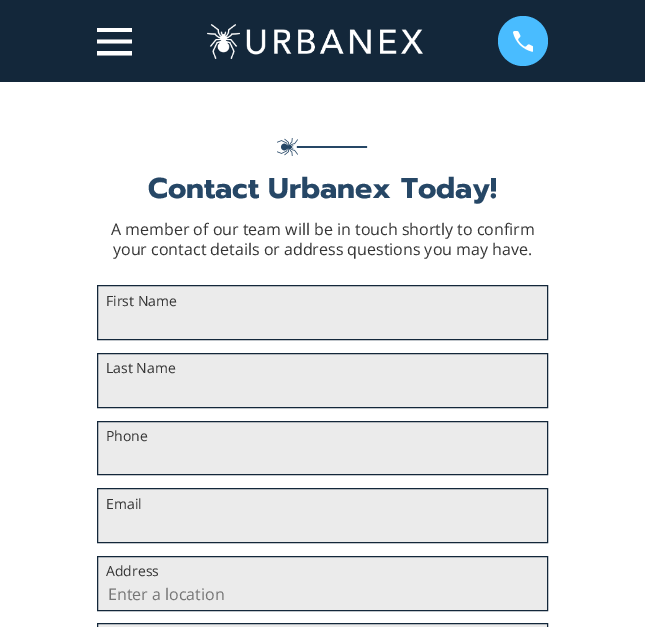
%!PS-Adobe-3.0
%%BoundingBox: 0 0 645 627
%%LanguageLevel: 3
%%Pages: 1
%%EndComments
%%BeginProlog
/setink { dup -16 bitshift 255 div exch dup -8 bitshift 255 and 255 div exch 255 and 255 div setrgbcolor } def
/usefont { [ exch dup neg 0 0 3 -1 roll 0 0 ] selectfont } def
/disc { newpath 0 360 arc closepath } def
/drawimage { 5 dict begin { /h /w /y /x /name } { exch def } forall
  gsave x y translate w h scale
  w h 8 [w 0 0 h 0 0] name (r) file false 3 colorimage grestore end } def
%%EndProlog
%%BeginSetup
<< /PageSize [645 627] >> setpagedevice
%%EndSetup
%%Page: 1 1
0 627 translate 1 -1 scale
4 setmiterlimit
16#FFFFFF setink
0 0 645 627 rectfill
16#13273A setink
0 0 645 82 rectfill
16#FFFFFF setink
97 28 moveto 97 32 lineto 132 32 lineto 132 28 lineto closepath 97 39.5 moveto 97 43.5 lineto 132 43.5 lineto 132 39.5 lineto closepath 97 51 moveto 97 55.5 lineto 132 55.5 lineto 132 51 lineto closepath fill
(img1.raw) 207 24 216 35 drawimage
16#49BCFF setink
523 41 25 disc fill
(img2.raw) 513 31 20 21 drawimage
(img3.raw) 277 138 91 18 drawimage
/Prompt-Bold 28.75 usefont
16#264766 setink
148 198 moveto (Contact Urbanex Today!) show
/OpenSans-Regular 16 usefont
16#343434 setink
111 235 moveto (A member of our team will be in touch shortly to confirm) show
113 255 moveto (your contact details or address questions you may have.) show
16#EBEBEB setink
97.5 285.5 moveto 547.5 285.5 lineto 547.5 339.5 lineto 97.5 339.5 lineto closepath gsave fill grestore
16#13273A setink
stroke
/OpenSans-Regular 14 usefont
16#343434 setink
106 306 moveto (First Name) show
16#EBEBEB setink
97.5 353.5 moveto 547.5 353.5 lineto 547.5 407.5 lineto 97.5 407.5 lineto closepath gsave fill grestore
16#13273A setink
stroke
16#343434 setink
106 373 moveto (Last Name) show
16#EBEBEB setink
97.5 421.5 moveto 547.5 421.5 lineto 547.5 474.5 lineto 97.5 474.5 lineto closepath gsave fill grestore
16#13273A setink
stroke
16#343434 setink
106 441 moveto (Phone) show
16#EBEBEB setink
97.5 488.5 moveto 547.5 488.5 lineto 547.5 542.5 lineto 97.5 542.5 lineto closepath gsave fill grestore
16#13273A setink
stroke
16#343434 setink
106 509 moveto (Email) show
16#EBEBEB setink
97.5 556.5 moveto 547.5 556.5 lineto 547.5 610.5 lineto 97.5 610.5 lineto closepath gsave fill grestore
16#13273A setink
stroke
16#343434 setink
106 576 moveto (Address) show
/OpenSans-Regular 16 usefont
16#757575 setink
108 600 moveto (Enter a location) show
16#EBEBEB setink
97.5 623.5 moveto 547.5 623.5 lineto 547.5 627.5 lineto 97.5 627.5 lineto closepath gsave fill grestore
16#13273A setink
stroke
showpage
%%EOF
